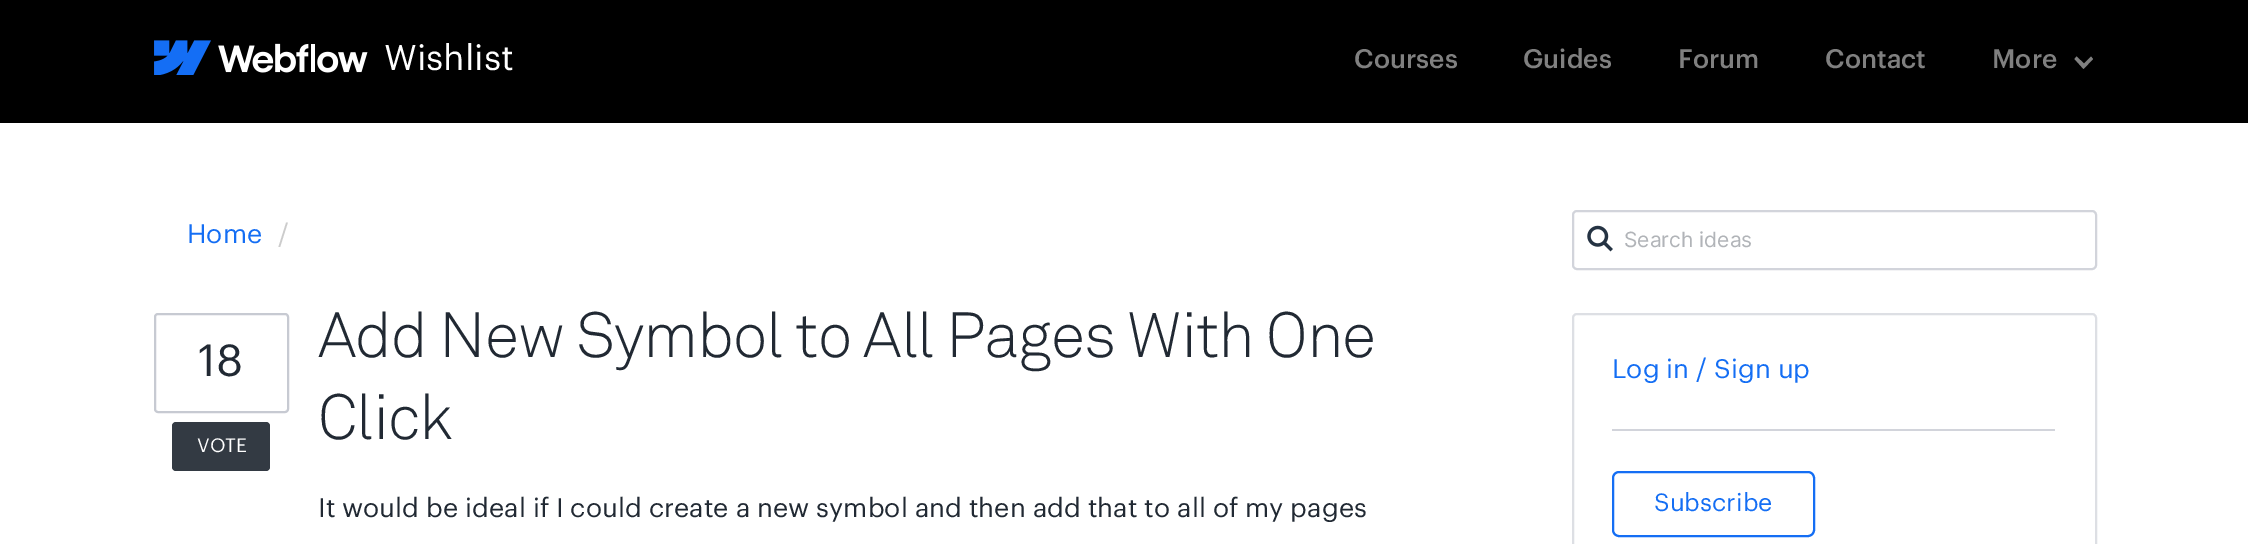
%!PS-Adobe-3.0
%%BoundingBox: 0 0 2248 544
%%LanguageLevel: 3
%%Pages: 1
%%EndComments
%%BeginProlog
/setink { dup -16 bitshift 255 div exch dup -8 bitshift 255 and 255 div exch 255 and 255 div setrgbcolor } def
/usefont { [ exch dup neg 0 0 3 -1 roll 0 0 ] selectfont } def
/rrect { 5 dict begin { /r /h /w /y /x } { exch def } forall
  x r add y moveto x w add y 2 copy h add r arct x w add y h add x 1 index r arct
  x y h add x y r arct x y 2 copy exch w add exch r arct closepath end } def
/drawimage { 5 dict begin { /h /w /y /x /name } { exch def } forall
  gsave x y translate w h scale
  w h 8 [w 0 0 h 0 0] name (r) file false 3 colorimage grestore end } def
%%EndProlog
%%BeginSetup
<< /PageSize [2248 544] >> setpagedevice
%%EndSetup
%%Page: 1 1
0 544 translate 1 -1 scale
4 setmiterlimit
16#FFFFFF setink
0 0 2248 544 rectfill
16#000000 setink
0 0 2248 123 rectfill
(img1.raw) 154 40 214 35 drawimage
/Graphik-Regular 35 usefont
16#FFFFFF setink
384 70 moveto (Wishlist) show
/Graphik-Medium 26.25 usefont
16#808080 setink
[
    [(Courses) 1354 68]
    [(Guides) 1523 68]
    [(Forum) 1678 68]
    [(Contact) 1825 68]
    [(More) 1992 68]
] { aload pop moveto show } forall
2091 56.5 moveto 2084 63.5 lineto 2076.5 56.5 lineto 2074.5 59 lineto 2083.5 69 lineto 2093 59 lineto closepath fill
/Graphik-Regular 26.25 usefont
16#146EF4 setink
187 243 moveto (Home) show
16#CCCCCC setink
278 243 moveto (/) show
16#D2D4DB setink
2 setlinewidth
1573 211 523 58 4 rrect stroke
(img2.raw) 1587 225 26 27 drawimage
/Inter-Regular 21 usefont
16#B1B4B8 setink
1624 247 moveto (Search ideas) show
16#C7CAD2 setink
155 314 133 98 3 rrect stroke
/Graphik-Regular 44 usefont
16#212933 setink
198 376 moveto (18) show
16#333A43 setink
172 422 98 49 4 rrect fill
/Graphik-Regular 19 usefont
16#FFFFFF setink
197 452 moveto (VOTE) show
/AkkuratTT-Light 63 usefont
16#212933 setink
318 357 moveto -1.05 0 (Add New Symbol to All Pages With One) ashow
318 439 moveto -1.05 0 (Click) ashow
/Graphik-Regular 26.25 usefont
318 517 moveto (It would be ideal if I could create a new symbol and then add that to all of my pages) show
16#DDDFE4 setink
1573 314 523 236 4 rrect stroke
16#D2D4DB setink
1612 429 443 2 rectfill
16#146EF4 setink
1612 378 moveto (Log in / Sign up) show
1613 472 201 64 6 rrect stroke
/Graphik-Regular 24.5 usefont
1654 511 moveto (Subscribe) show
showpage
%%EOF
